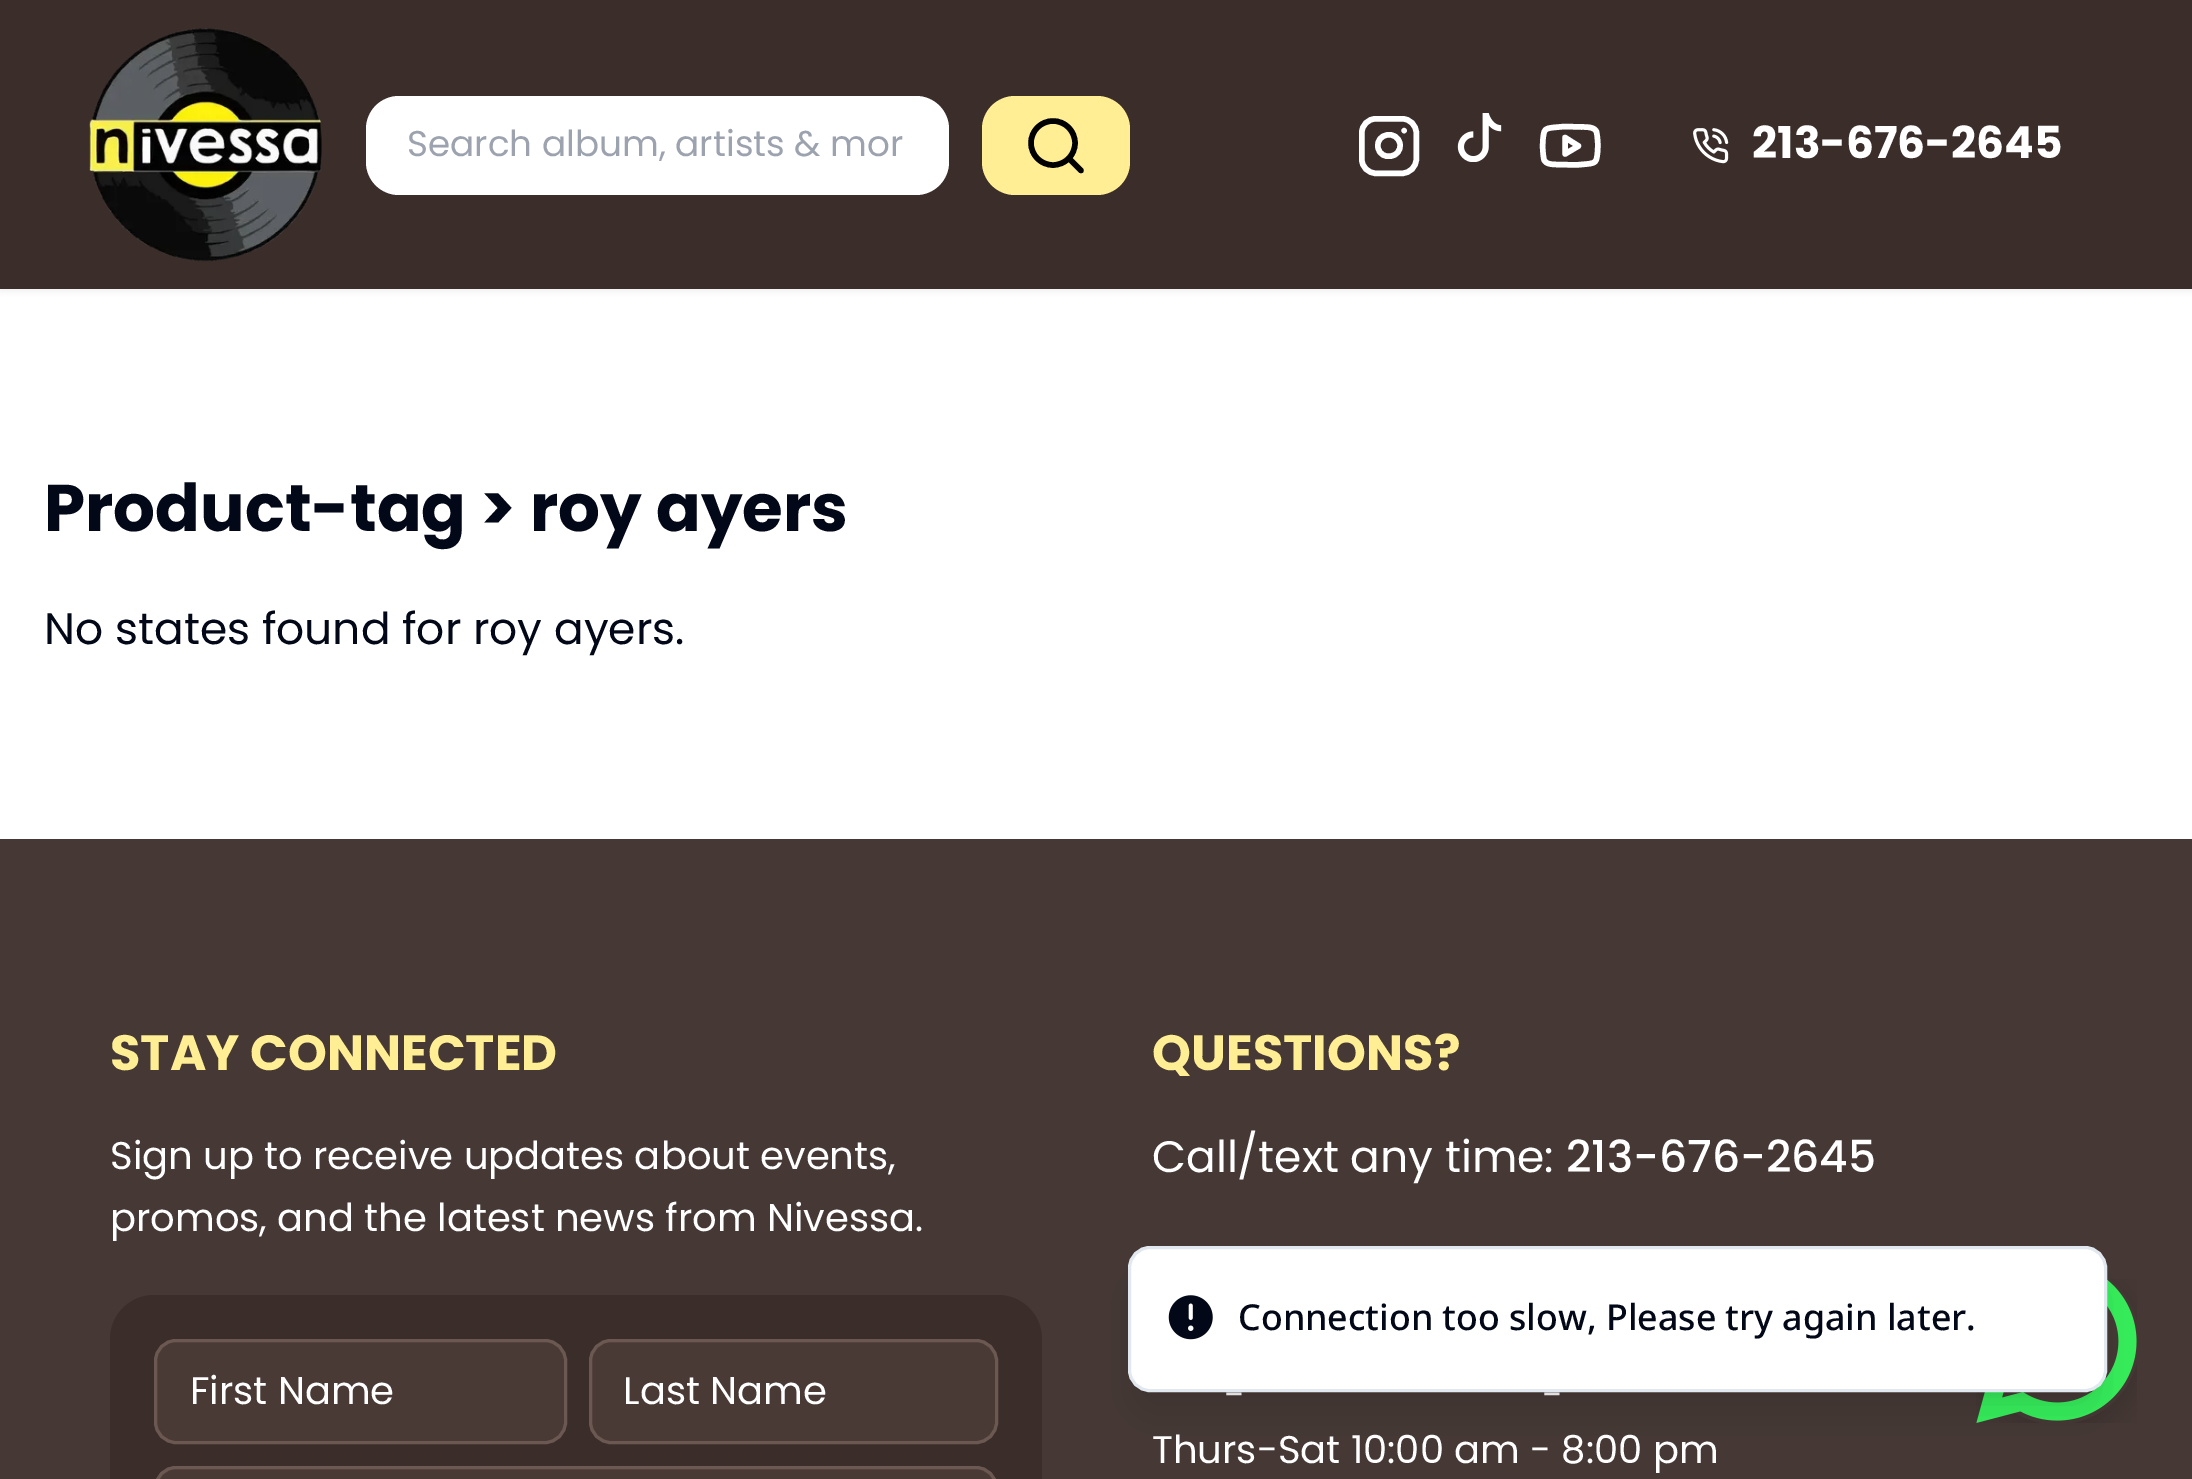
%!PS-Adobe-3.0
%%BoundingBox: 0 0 2192 1479
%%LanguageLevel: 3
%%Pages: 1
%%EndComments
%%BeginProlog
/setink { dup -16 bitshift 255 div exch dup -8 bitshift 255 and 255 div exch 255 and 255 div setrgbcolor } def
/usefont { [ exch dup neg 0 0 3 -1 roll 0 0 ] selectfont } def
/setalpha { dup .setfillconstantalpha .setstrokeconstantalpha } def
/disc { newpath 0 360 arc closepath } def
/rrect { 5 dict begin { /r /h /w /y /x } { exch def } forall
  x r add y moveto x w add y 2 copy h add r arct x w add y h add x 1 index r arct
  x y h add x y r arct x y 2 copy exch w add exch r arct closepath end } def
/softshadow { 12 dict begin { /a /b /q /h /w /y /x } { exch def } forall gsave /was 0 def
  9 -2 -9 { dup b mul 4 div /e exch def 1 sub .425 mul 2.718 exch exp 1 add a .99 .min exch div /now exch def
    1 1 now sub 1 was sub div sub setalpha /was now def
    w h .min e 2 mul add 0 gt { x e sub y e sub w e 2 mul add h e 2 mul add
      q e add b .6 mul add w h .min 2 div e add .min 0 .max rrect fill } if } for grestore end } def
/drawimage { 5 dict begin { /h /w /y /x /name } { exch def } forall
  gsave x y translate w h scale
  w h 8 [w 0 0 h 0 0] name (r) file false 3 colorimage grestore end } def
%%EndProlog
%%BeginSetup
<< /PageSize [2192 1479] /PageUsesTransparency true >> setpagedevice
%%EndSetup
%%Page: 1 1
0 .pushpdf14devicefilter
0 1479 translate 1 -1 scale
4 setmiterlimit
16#FFFFFF setink
0 0 2192 1479 rectfill
16#000000 setink
0 3 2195 289 0 3 0.05 softshadow
16#3B2E2A setink
0 0 2192 289 rectfill
(img1.raw) 89 28 233 234 drawimage
16#FFFFFF setink
366 96 583 99 33 rrect fill
/Poppins-Regular 35.75 usefont
16#9CA3AF setink
407 156 moveto (Search album, artists & mor) show
16#FFEE94 setink
982 96 148 99 33 rrect fill
16#000000 setink
5.5 setlinewidth
1053 143 22 disc stroke
1 setlinecap
1 setlinejoin
1081 170.5 moveto 1069 158.5 lineto stroke
16#FFFFFF setink
0 setlinecap
0 setlinejoin
1361.75 118.75 54.5 54.5 14.25 rrect stroke
1 setlinecap
1 setlinejoin
1400 144 moveto 1402 158 1380.5 161.5 1378 147.5 curveto 1375.5 133 1397.5 129.5 1400 144 curveto closepath 1404 130.5 moveto 1404 130.5 lineto stroke
(img2.raw) 1457 113 45 49 drawimage
1544 159.5 moveto 1542.5 152.5 1542.5 145.5 1543 139 curveto 1544 129.5 1544.5 128.5 1553.5 127.5 curveto 1564.5 126.5 lineto 1581.5 127 lineto 1585 127 1595 126.5 1596.5 132 curveto 1598 139 1598 146 1597.5 152.5 curveto 1596.5 162 1596 163 1587 164 curveto 1576 165 lineto 1559 164.5 lineto 1555 164.5 1545.5 165 1544 159.5 curveto 1565 154 moveto 1578.5 146 lineto 1565 137.5 lineto closepath stroke
(img3.raw) 1693 128 36 36 drawimage
/Poppins-Bold 44 usefont
1752 158 moveto (213-676-2645) show
/Poppins-Bold 66 usefont
16#020817 setink
44 531 moveto (Product-tag > roy ayers) show
/Poppins-Regular 44 usefont
44 644 moveto (No states found for roy ayers.) show
16#453835 setink
0 839 2192 640 rectfill
/Poppins-Bold 49.5 usefont
16#FFEE94 setink
110 1070 moveto (STAY CONNECTED) show
/Poppins-Regular 38.5 usefont
16#FFFFFF setink
110 1169 moveto (Sign up to receive updates about events,) show
110 1231 moveto (promos, and the latest news from Nivessa.) show
16#3B2E2A setink
110 1295 932 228 44 rrect fill
16#4A3A36 setink
155.5 1340.5 410 102 20.5 rrect gsave fill grestore
16#6B5853 setink
3 setlinewidth
0 setlinecap
0 setlinejoin
stroke
16#FFFFFF setink
190 1404 moveto (First Name) show
16#4A3A36 setink
590.5 1340.5 406 102 20.5 rrect gsave fill grestore
16#6B5853 setink
stroke
16#FFFFFF setink
623 1404 moveto (Last Name) show
16#4A3A36 setink
155.5 1467.5 841 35 20.5 rrect gsave fill grestore
16#6B5853 setink
stroke
/Poppins-Bold 49.5 usefont
16#FFEE94 setink
1152 1070 moveto (QUESTIONS?) show
/Poppins-Regular 44 usefont
16#FFFFFF setink
1152 1172 moveto (Call/text any time:) show
/Poppins-Medium 44 usefont
1566 1172 moveto (213-676-2645) show
/Poppins-Regular 38.5 usefont
[
    [(-) 1224 1408]
    [(-) 1542 1408]
    [(Thurs-Sat 10:00 am - 8:00 pm) 1152 1463]
] { aload pop moveto show } forall
(img4.raw) 1976 1279 161 144 drawimage
16#000000 setink
1139 1268 957 124 11 8 0.1 softshadow
1136 1282 962 129 14 20.5 0.1 softshadow
16#FFFFFF setink
1129.5 1247.5 976 143 20.5 rrect gsave fill grestore
16#E2E8F0 setink
stroke
(img5.raw) 1168 1295 45 45 drawimage
/NotoSans-Medium 35.75 usefont
16#020817 setink
1238 1330 moveto (Connection too slow, Please try again later.) show
.poppdf14devicefilter showpage
%%EOF
